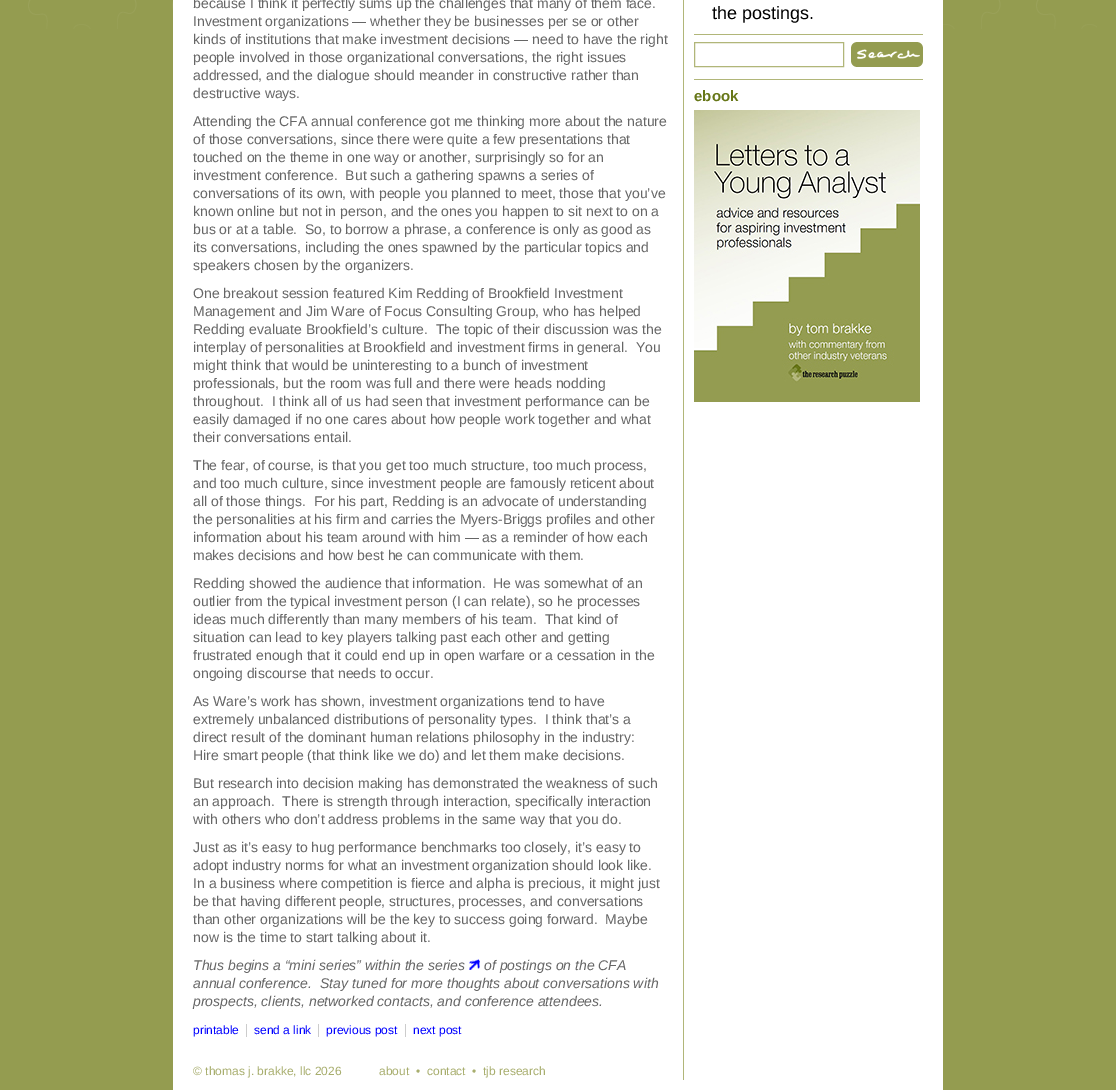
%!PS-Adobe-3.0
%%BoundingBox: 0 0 1116 1090
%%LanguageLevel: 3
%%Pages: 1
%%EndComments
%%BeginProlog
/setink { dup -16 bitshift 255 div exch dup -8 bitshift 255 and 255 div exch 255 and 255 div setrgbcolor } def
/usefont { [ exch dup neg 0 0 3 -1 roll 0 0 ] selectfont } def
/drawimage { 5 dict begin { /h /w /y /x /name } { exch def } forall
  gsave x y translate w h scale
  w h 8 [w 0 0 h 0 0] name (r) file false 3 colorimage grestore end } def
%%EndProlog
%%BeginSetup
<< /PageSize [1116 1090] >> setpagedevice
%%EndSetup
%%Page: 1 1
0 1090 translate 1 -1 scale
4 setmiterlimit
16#949C50 setink
0 0 1116 1090 rectfill
(img1.raw) 28 0 1069 29 drawimage
16#FFFFFF setink
173 0 770 1090 rectfill
16#B1B679 setink
683 0 1 1080 rectfill
/LiberationSans-Regular 14 usefont
16#666666 setink
[
    [(because I think it perfectly sums up the challenges that many of them face.) 193 8]
    [(Investment organizations — whether they be businesses per se or other) 193 26]
    [(kinds of institutions that make investment decisions — need to have the right) 193 44]
    [(people involved in those organizational conversations, the right issues) 193 62]
    [(addressed, and the dialogue should meander in constructive rather than) 193 80]
    [(destructive ways.) 193 98]
    [(Attending the CFA annual conference got me thinking more about the nature) 193 126]
    [(of those conversations, since there were quite a few presentations that) 193 144]
    [(touched on the theme in one way or another, surprisingly so for an) 193 162]
    [(investment conference.  But such a gathering spawns a series of) 193 180]
    [(conversations of its own, with people you planned to meet, those that you’ve) 193 198]
    [(known online but not in person, and the ones you happen to sit next to on a) 193 216]
    [(bus or at a table.  So, to borrow a phrase, a conference is only as good as) 193 234]
    [(its conversations, including the ones spawned by the particular topics and) 193 252]
    [(speakers chosen by the organizers.) 193 270]
    [(One breakout session featured Kim Redding of Brookfield Investment) 193 298]
    [(Management and Jim Ware of Focus Consulting Group, who has helped) 193 316]
    [(Redding evaluate Brookfield’s culture.  The topic of their discussion was the) 193 334]
    [(interplay of personalities at Brookfield and investment firms in general.  You) 193 352]
    [(might think that would be uninteresting to a bunch of investment) 193 370]
    [(professionals, but the room was full and there were heads nodding) 193 388]
    [(throughout.  I think all of us had seen that investment performance can be) 193 406]
    [(easily damaged if no one cares about how people work together and what) 193 424]
    [(their conversations entail.) 193 442]
    [(The fear, of course, is that you get too much structure, too much process,) 193 470]
    [(and too much culture, since investment people are famously reticent about) 193 488]
    [(all of those things.  For his part, Redding is an advocate of understanding) 193 506]
    [(the personalities at his firm and carries the Myers-Briggs profiles and other) 193 524]
    [(information about his team around with him — as a reminder of how each) 193 542]
    [(makes decisions and how best he can communicate with them.) 193 560]
    [(Redding showed the audience that information.  He was somewhat of an) 193 588]
    [(outlier from the typical investment person \(I can relate\), so he processes) 193 606]
    [(ideas much differently than many members of his team.  That kind of) 193 624]
    [(situation can lead to key players talking past each other and getting) 193 642]
    [(frustrated enough that it could end up in open warfare or a cessation in the) 193 660]
    [(ongoing discourse that needs to occur.) 193 678]
    [(As Ware’s work has shown, investment organizations tend to have) 193 706]
    [(extremely unbalanced distributions of personality types.  I think that’s a) 193 724]
    [(direct result of the dominant human relations philosophy in the industry:) 193 742]
    [(Hire smart people \(that think like we do\) and let them make decisions.) 193 760]
    [(But research into decision making has demonstrated the weakness of such) 193 788]
    [(an approach.  There is strength through interaction, specifically interaction) 193 806]
    [(with others who don’t address problems in the same way that you do.) 193 824]
    [(Just as it’s easy to hug performance benchmarks too closely, it’s easy to) 193 852]
    [(adopt industry norms for what an investment organization should look like.) 193 870]
    [(In a business where competition is fierce and alpha is precious, it might just) 193 888]
    [(be that having different people, structures, processes, and conversations) 193 906]
    [(than other organizations will be the key to success going forward.  Maybe) 193 924]
    [(now is the time to start talking about it.) 193 942]
] { aload pop moveto show } forall
/LiberationSans-Italic 14 usefont
193 970 moveto (Thus begins a “mini series” within the series) show
(img2.raw) 469 959 11 11 drawimage
[
    [(of postings on the CFA) 484 970]
    [(annual conference.  Stay tuned for more thoughts about conversations with) 193 988]
    [(prospects, clients, networked contacts, and conference attendees.) 193 1006]
] { aload pop moveto show } forall
16#CCCCCC setink
246 1024 1 13 rectfill
/LiberationSans-Regular 12 usefont
16#0000FF setink
193 1034 moveto (printable) show
16#CCCCCC setink
318 1024 1 13 rectfill
16#0000FF setink
254 1034 moveto (send a link) show
16#CCCCCC setink
405 1024 1 13 rectfill
16#0000FF setink
326 1034 moveto (previous post) show
413 1034 moveto (next post) show
/LiberationSans-Regular 18 usefont
16#000000 setink
712 19 moveto (the postings.) show
16#B1B679 setink
694 34 229 1 rectfill
694.5 42.5 149 24 rectstroke
(img3.raw) 851 42 72 25 drawimage
694 79 229 1 rectfill
/LiberationSans-Bold 15 usefont
16#677718 setink
694 101 moveto (ebook) show
(img4.raw) 694 110 226 292 drawimage
/LiberationSans-Regular 12 usefont
16#A8AE6E setink
[
    [(© thomas j. brakke, llc 2026) 193 1075]
    [(about) 379 1075]
    [(•) 416 1075]
    [(contact) 427 1075]
    [(•) 472 1075]
    [(tjb research) 483 1075]
] { aload pop moveto show } forall
showpage
%%EOF
